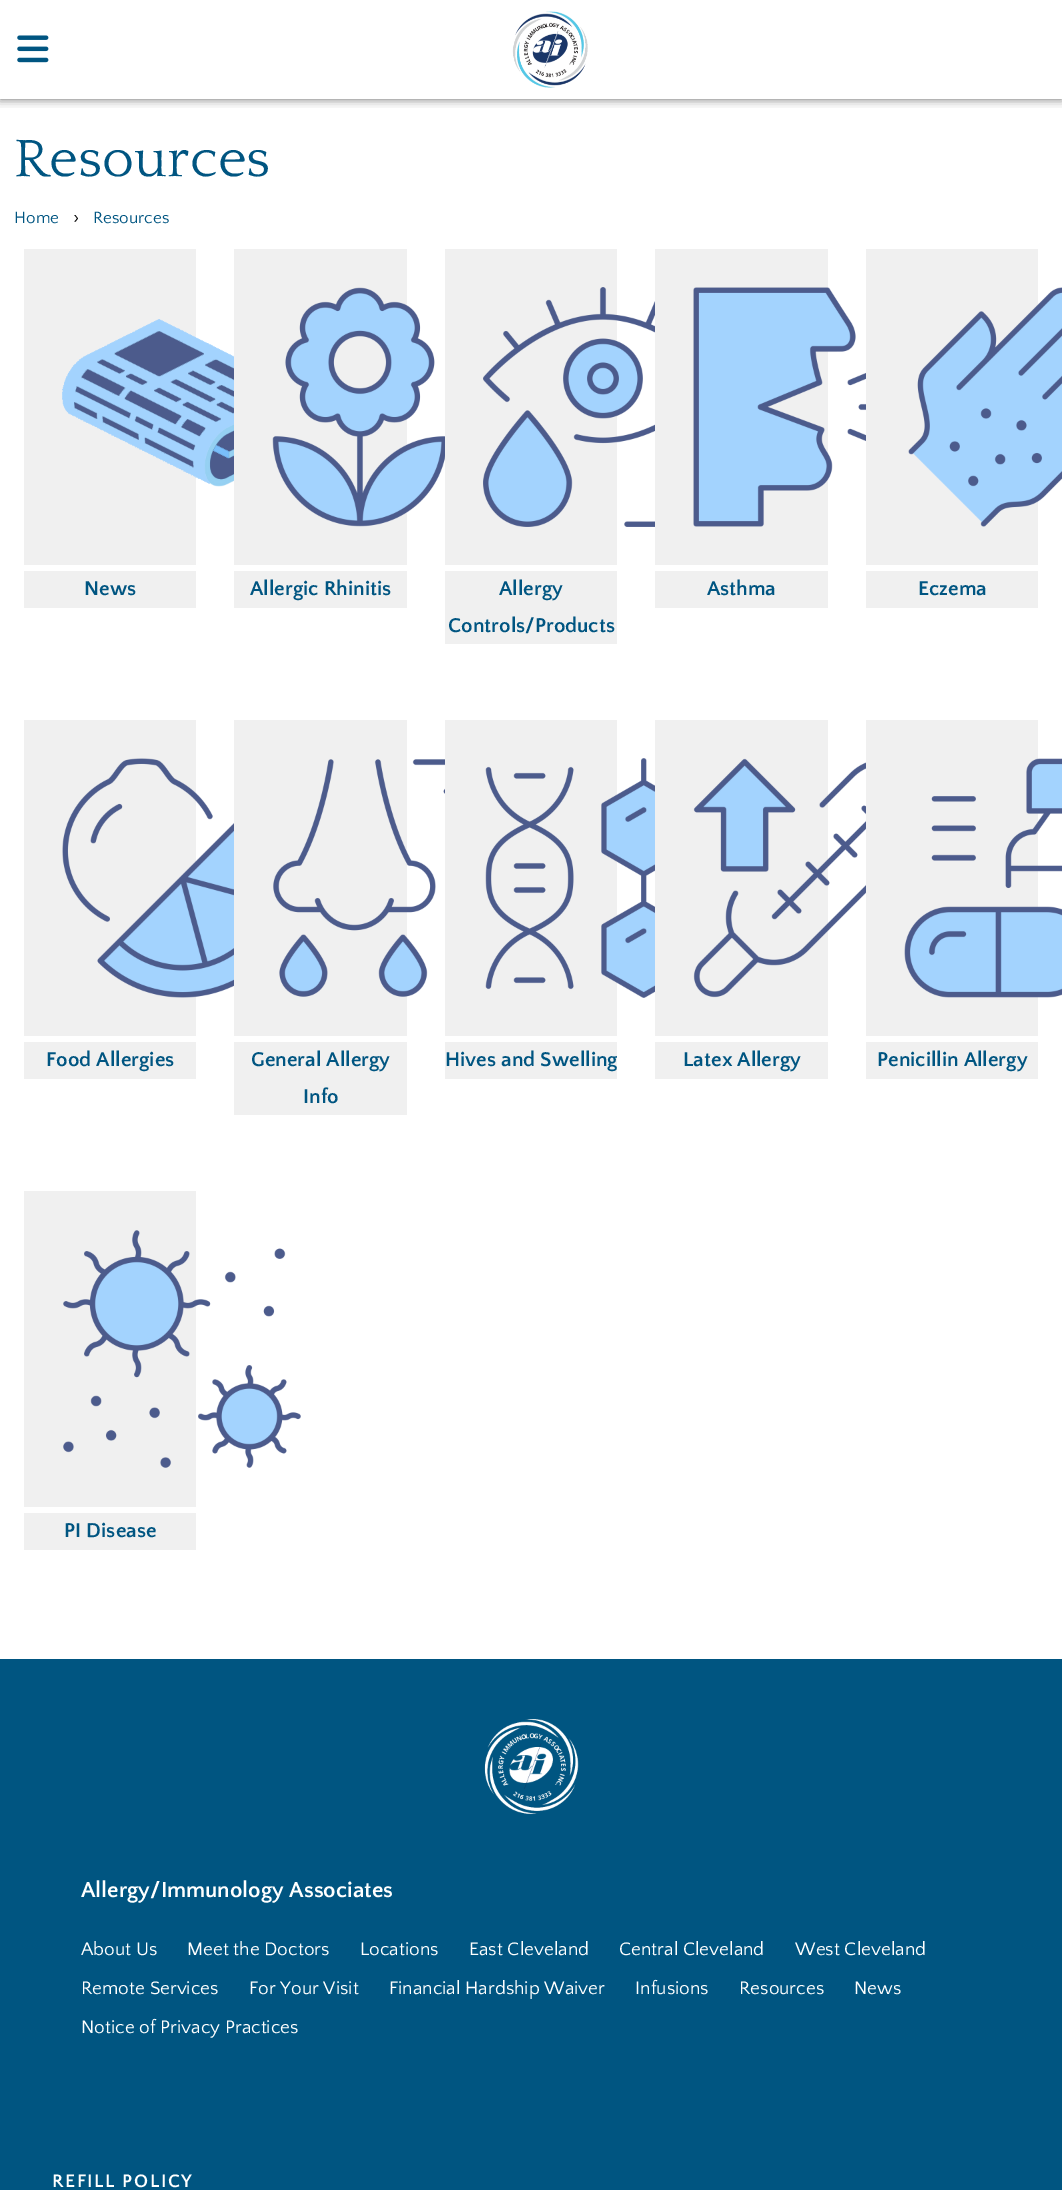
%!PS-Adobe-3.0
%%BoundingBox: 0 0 1062 2190
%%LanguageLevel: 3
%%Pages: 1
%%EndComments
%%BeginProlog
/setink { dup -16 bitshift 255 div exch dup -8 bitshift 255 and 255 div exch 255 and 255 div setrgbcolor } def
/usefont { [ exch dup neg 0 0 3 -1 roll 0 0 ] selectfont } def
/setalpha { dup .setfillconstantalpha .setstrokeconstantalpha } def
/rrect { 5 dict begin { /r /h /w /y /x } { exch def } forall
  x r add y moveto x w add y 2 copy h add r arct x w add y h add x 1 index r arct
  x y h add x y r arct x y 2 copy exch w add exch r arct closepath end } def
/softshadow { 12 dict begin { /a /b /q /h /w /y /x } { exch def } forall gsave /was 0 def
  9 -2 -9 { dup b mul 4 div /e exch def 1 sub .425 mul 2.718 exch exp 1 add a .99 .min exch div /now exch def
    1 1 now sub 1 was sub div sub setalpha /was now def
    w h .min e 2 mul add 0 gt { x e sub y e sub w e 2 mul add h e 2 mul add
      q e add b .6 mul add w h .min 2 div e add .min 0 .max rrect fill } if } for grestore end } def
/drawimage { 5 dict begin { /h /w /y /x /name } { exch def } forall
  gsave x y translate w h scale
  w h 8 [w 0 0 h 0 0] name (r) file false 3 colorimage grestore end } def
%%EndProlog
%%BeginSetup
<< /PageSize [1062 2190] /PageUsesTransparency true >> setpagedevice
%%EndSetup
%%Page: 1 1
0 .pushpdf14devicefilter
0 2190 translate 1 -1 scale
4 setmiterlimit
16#FFFFFF setink
0 0 1062 2190 rectfill
gsave
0 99 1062 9 rectclip
16#000000 setink
0 0 1062 99 0 5 0.6 softshadow
grestore
(img1.raw) 17 35 32 28 drawimage
(img2.raw) 512 11 76 77 drawimage
/Quattrocento-Regular 55 usefont
16#005581 setink
14 176 moveto (Resources) show
/QuattrocentoSans-Regular 17 usefont
14 223 moveto (Home) show
/QuattrocentoSans-Regular 19 usefont
16#000000 setink
73 223 moveto (›) show
/QuattrocentoSans-Regular 17 usefont
16#005581 setink
93 223 moveto (Resources) show
16#F0F0F0 setink
24 249 172 316 rectfill
(img3.raw) 62 319 172 168 drawimage
24 571 172 37 rectfill
/QuattrocentoSans-Bold 21 usefont
16#005581 setink
84 595 moveto (News) show
16#F0F0F0 setink
234 249 173 316 rectfill
(img4.raw) 272 287 173 240 drawimage
234 571 173 37 rectfill
16#005581 setink
250 595 moveto (Allergic Rhinitis) show
16#F0F0F0 setink
445 249 172 316 rectfill
(img5.raw) 483 287 172 240 drawimage
445 571 172 73 rectfill
16#005581 setink
499 595 moveto (Allergy) show
448 632 moveto (Controls/Products) show
16#F0F0F0 setink
655 249 173 316 rectfill
(img6.raw) 693 287 173 240 drawimage
655 571 173 37 rectfill
16#005581 setink
707 595 moveto (Asthma) show
16#F0F0F0 setink
866 249 172 316 rectfill
(img7.raw) 908 287 154 240 drawimage
866 571 172 37 rectfill
16#005581 setink
918 595 moveto (Eczema) show
16#F0F0F0 setink
24 720 172 316 rectfill
(img8.raw) 62 758 172 240 drawimage
24 1042 172 37 rectfill
16#005581 setink
46 1066 moveto (Food Allergies) show
16#F0F0F0 setink
234 720 173 316 rectfill
(img9.raw) 273 759 172 238 drawimage
234 1042 173 73 rectfill
16#005581 setink
251 1066 moveto (General Allergy) show
303 1103 moveto (Info) show
16#F0F0F0 setink
445 720 172 316 rectfill
(img10.raw) 485 758 170 240 drawimage
445 1042 172 37 rectfill
16#005581 setink
445 1066 moveto (Hives and Swelling) show
16#F0F0F0 setink
655 720 173 316 rectfill
(img11.raw) 693 758 173 240 drawimage
655 1042 173 37 rectfill
16#005581 setink
683 1066 moveto (Latex Allergy) show
16#F0F0F0 setink
866 720 172 316 rectfill
(img12.raw) 904 758 158 240 drawimage
866 1042 172 37 rectfill
16#005581 setink
877 1066 moveto (Penicillin Allergy) show
16#F0F0F0 setink
24 1191 172 316 rectfill
(img13.raw) 63 1230 238 238 drawimage
24 1513 172 37 rectfill
16#005581 setink
64 1537 moveto (PI Disease) show
0 1659 1062 531 rectfill
(img14.raw) 484 1719 95 96 drawimage
/QuattrocentoSans-Bold 22.75 usefont
16#FFFFFF setink
81 1897 moveto (Allergy/Immunology Associates) show
/QuattrocentoSans-Regular 19 usefont
[
    [(About Us) 81 1955]
    [(Meet the Doctors) 187 1955]
    [(Locations) 360 1955]
    [(East Cleveland) 469 1955]
    [(Central Cleveland) 619 1955]
    [(West Cleveland) 795 1955]
    [(Remote Services) 81 1994]
    [(For Your Visit) 249 1994]
    [(Financial Hardship Waiver) 389 1994]
    [(Infusions) 635 1994]
    [(Resources) 739 1994]
    [(News) 854 1994]
    [(Notice of Privacy Practices) 81 2033]
] { aload pop moveto show } forall
/QuattrocentoSans-Bold 19 usefont
52 2187 moveto 1.5 0 (REFILL POLICY) ashow
.poppdf14devicefilter showpage
%%EOF
